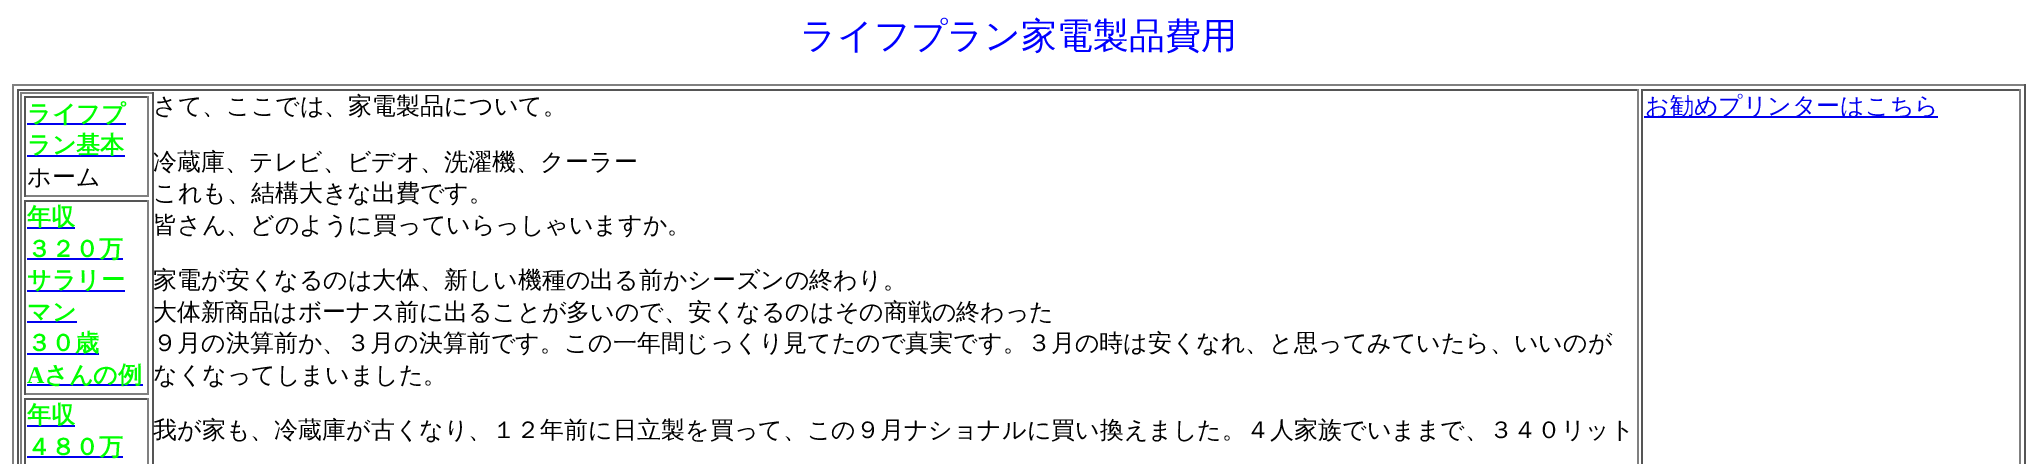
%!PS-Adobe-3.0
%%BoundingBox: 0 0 2037 464
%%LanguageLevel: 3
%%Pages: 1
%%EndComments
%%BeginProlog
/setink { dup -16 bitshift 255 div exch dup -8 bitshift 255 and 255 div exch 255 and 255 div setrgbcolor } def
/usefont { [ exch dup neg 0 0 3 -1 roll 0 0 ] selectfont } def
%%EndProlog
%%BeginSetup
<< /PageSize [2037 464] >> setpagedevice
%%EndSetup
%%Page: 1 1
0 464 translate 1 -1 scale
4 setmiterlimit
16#FFFFFF setink
0 0 2037 464 rectfill
/WenQuanYiZenHei-Medium 36 usefont
16#0000FF setink
800 48 moveto (ライフプラン家電製品費用) show
[
    [12 84 2013 2 16#808080]
    [2024 84 2 380 16#555555]
    [12 84 2 380 16#808080]
    [17 89 1621 2 16#555555]
    [1637 89 2 375 16#808080]
    [17 89 2 375 16#555555]
    [20 92 133 2 16#808080]
    [152 92 2 372 16#555555]
    [20 92 2 372 16#808080]
    [24 96 125 2 16#555555]
    [147 96 2 101 16#808080]
    [24 195 125 2 16#808080]
    [24 96 2 101 16#555555]
    [27 123 99 2 16#0000EE]
] { aload pop setink rectfill } forall
/WenQuanYiZenHei-Bold 24 usefont
16#00FF00 setink
27 122 moveto (ライフプ) show
16#0000EE setink
27 155 98 2 rectfill
16#00FF00 setink
27 153 moveto (ラン基本) show
/WenQuanYiZenHei-Medium 24 usefont
16#000000 setink
27 185 moveto (ホーム) show
[
    [24 200 125 2 16#555555]
    [147 200 2 195 16#808080]
    [24 393 125 2 16#808080]
    [24 200 2 195 16#555555]
    [27 227 48 2 16#0000EE]
] { aload pop setink rectfill } forall
/WenQuanYiZenHei-Bold 24 usefont
16#00FF00 setink
27 225 moveto (年収) show
16#0000EE setink
27 258 96 2 rectfill
16#00FF00 setink
27 257 moveto (３２０万) show
16#0000EE setink
27 290 98 2 rectfill
16#00FF00 setink
27 288 moveto (サラリー) show
16#0000EE setink
27 321 50 2 rectfill
16#00FF00 setink
27 320 moveto (マン) show
16#0000EE setink
27 353 72 2 rectfill
16#00FF00 setink
27 351 moveto (３０歳) show
/LiberationSerif-Bold 24 usefont
27 383 moveto (A) show
16#0000EE setink
27 384 116 2 rectfill
/WenQuanYiZenHei-Bold 24 usefont
16#00FF00 setink
44 383 moveto (さんの例) show
[
    [24 398 125 2 16#555555]
    [147 398 2 66 16#808080]
    [24 398 2 66 16#555555]
    [27 425 48 2 16#0000EE]
] { aload pop setink rectfill } forall
16#00FF00 setink
27 423 moveto (年収) show
16#0000EE setink
27 456 96 2 rectfill
16#00FF00 setink
27 455 moveto (４８０万) show
/WenQuanYiZenHei-Medium 24 usefont
16#000000 setink
[
    [(さて、ここでは、家電製品について。) 153 114]
    [(冷蔵庫、テレビ、ビデオ、洗濯機、クーラー) 153 170]
    [(これも、結構大きな出費です。) 153 201]
    [(皆さん、どのように買っていらっしゃいますか。) 153 233]
    [(家電が安くなるのは大体、新しい機種の出る前かシーズンの終わり。) 153 288]
    [(大体新商品はボーナス前に出ることが多いので、安くなるのはその商戦の終わった) 153 320]
    [(９月の決算前か、３月の決算前です。この一年間じっくり見てたので真実です。３月の時は安くなれ、と思ってみていたら、いいのが) 153 351]
    [(なくなってしまいました。) 153 383]
    [(我が家も、冷蔵庫が古くなり、１２年前に日立製を買って、この９月ナショナルに買い換えました。４人家族でいままで、３４０リット) 153 438]
] { aload pop moveto show } forall
[
    [1641 89 380 2 16#555555]
    [2019 89 2 375 16#808080]
    [1641 89 2 375 16#555555]
    [1644 116 294 2 16#0000EE]
] { aload pop setink rectfill } forall
1645 114 moveto (お勧めプリンターはこちら) show
showpage
%%EOF
